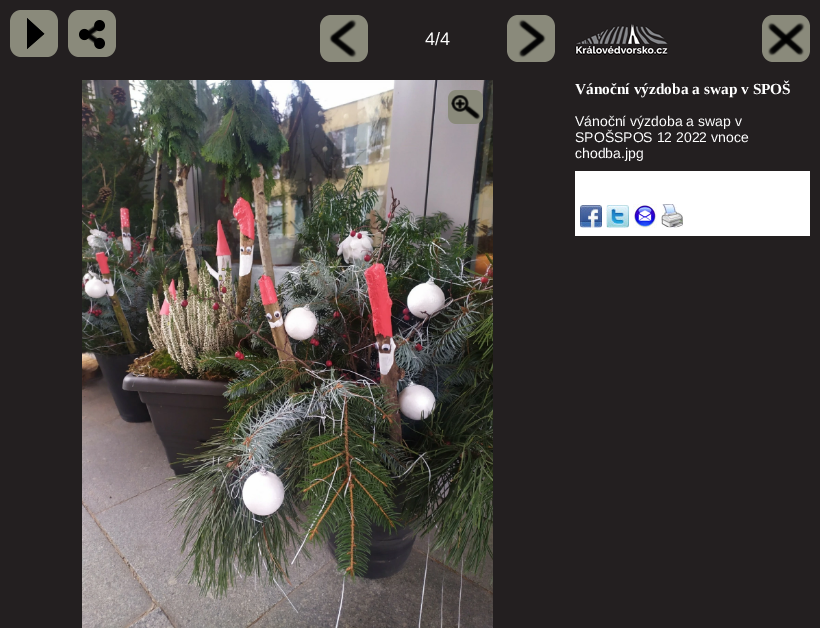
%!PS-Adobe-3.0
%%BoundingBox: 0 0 820 628
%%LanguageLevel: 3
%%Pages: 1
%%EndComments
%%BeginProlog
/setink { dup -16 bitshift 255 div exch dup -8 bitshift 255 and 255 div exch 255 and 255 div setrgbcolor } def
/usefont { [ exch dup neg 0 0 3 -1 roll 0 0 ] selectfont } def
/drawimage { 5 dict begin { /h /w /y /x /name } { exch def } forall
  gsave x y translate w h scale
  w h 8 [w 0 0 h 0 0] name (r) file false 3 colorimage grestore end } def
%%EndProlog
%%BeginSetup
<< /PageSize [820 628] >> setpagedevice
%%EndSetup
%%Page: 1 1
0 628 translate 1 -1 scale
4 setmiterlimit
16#231F20 setink
0 0 820 628 rectfill
(img1.raw) 10 10 48 47 drawimage
(img2.raw) 68 10 48 47 drawimage
(img3.raw) 320 15 48 47 drawimage
/LiberationSans-Regular 18 usefont
16#FFFFFF setink
425 45 moveto (4/4) show
(img4.raw) 507 15 48 47 drawimage
(img5.raw) 575 24 93 31 drawimage
(img6.raw) 762 15 48 47 drawimage
(img7.raw) 82 80 411 548 drawimage
(img8.raw) 448 90 35 34 drawimage
/LiberationSerif-Bold 15.4 usefont
575 94 moveto (Vánoční výzdoba a swap v SPOŠ) show
/LiberationSans-Regular 14 usefont
[
    [(Vánoční výzdoba a swap v) 575 126]
    [(SPOŠSPOS 12 2022 vnoce) 575 142]
    [(chodba.jpg) 575 158]
] { aload pop moveto show } forall
575 171 235 65 rectfill
(img9.raw) 580 205 22 23 drawimage
(img10.raw) 606 205 23 23 drawimage
(img11.raw) 633 204 24 24 drawimage
(img12.raw) 661 204 22 24 drawimage
showpage
%%EOF
